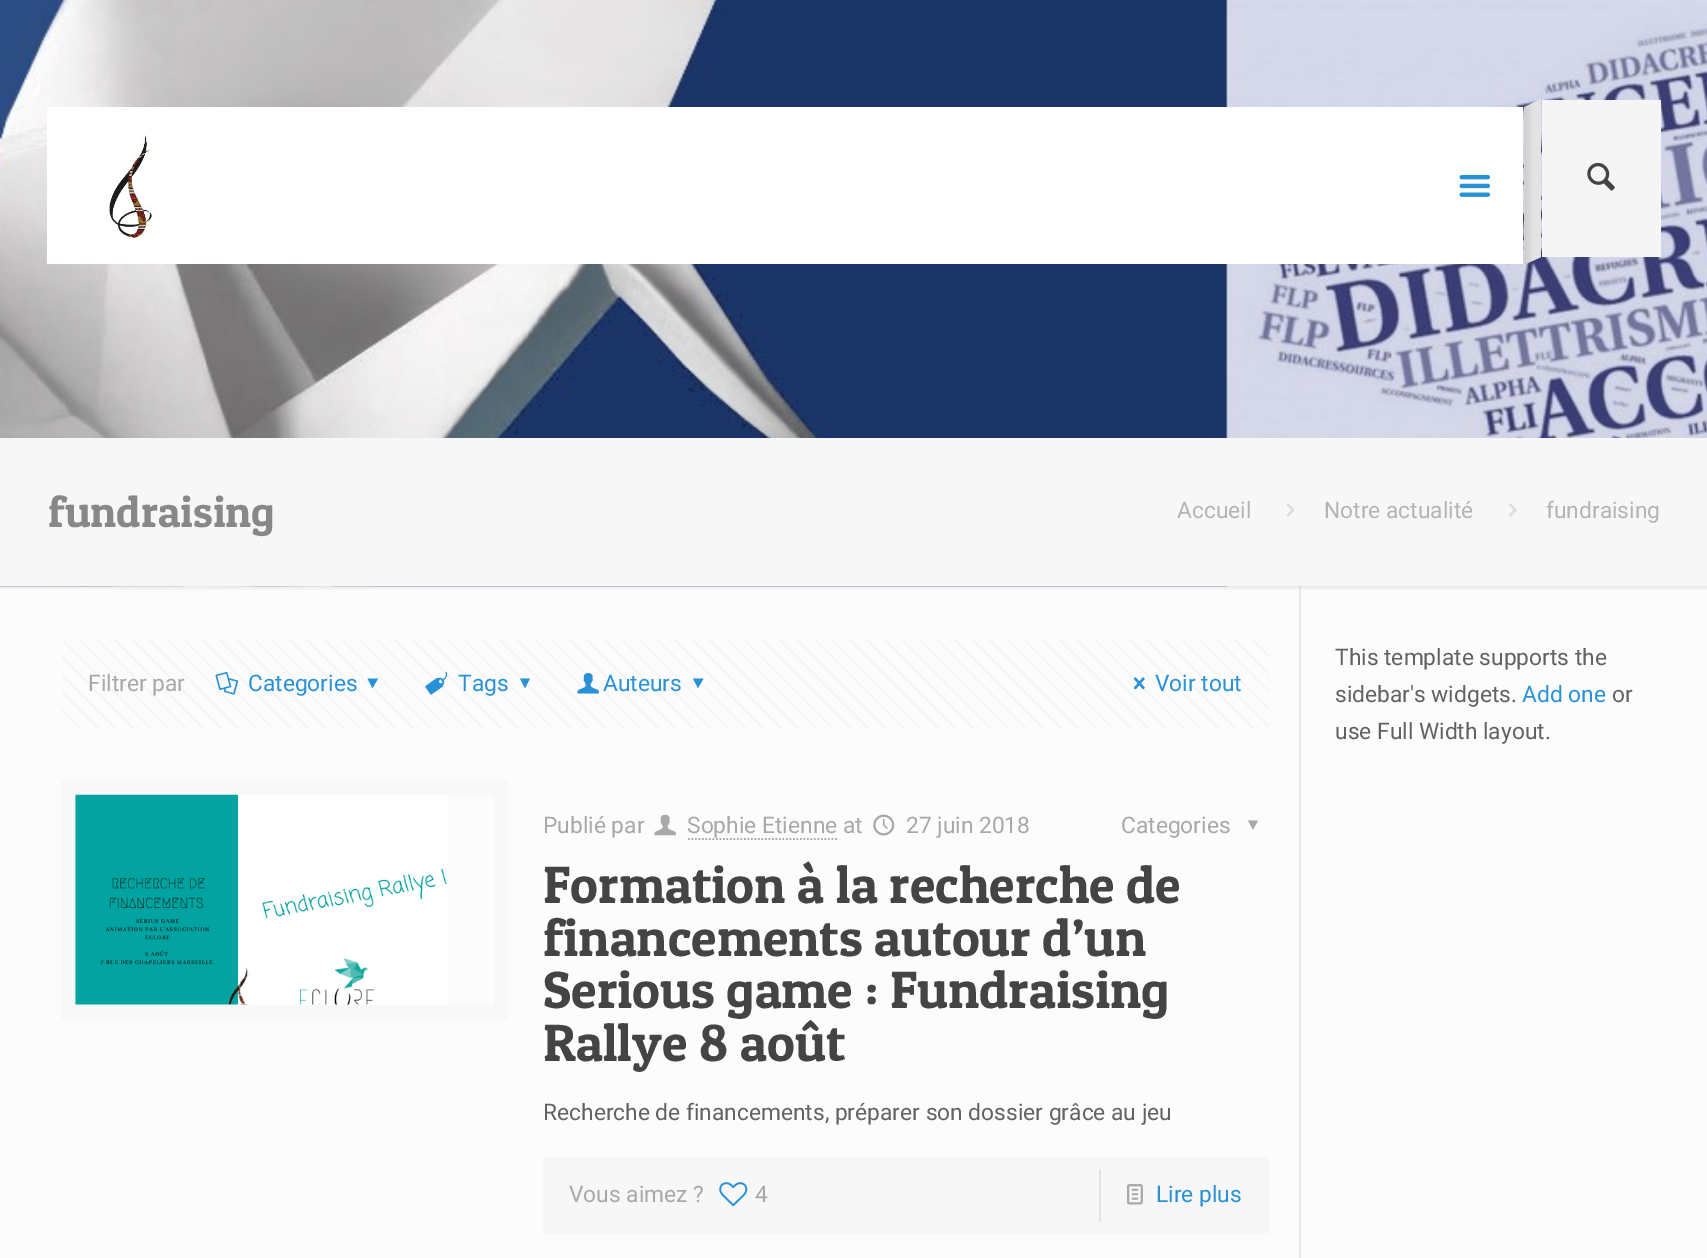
%!PS-Adobe-3.0
%%BoundingBox: 0 0 1707 1258
%%LanguageLevel: 3
%%Pages: 1
%%EndComments
%%BeginProlog
/setink { dup -16 bitshift 255 div exch dup -8 bitshift 255 and 255 div exch 255 and 255 div setrgbcolor } def
/usefont { [ exch dup neg 0 0 3 -1 roll 0 0 ] selectfont } def
/setalpha { dup .setfillconstantalpha .setstrokeconstantalpha } def
/drawimage { 5 dict begin { /h /w /y /x /name } { exch def } forall
  gsave x y translate w h scale
  w h 8 [w 0 0 h 0 0] name (r) file false 3 colorimage grestore end } def
%%EndProlog
%%BeginSetup
<< /PageSize [1707 1258] /PageUsesTransparency true >> setpagedevice
%%EndSetup
%%Page: 1 1
0 .pushpdf14devicefilter
0 1258 translate 1 -1 scale
4 setmiterlimit
16#FCFCFC setink
0 0 1707 1258 rectfill
(img1.raw) 0 0 1707 587 drawimage
16#FFFFFF setink
47 107 1476 157 rectfill
(img2.raw) 107 135 46 105 drawimage
(img3.raw) 1459 175 32 22 drawimage
16#F5F5F5 setink
1542 100 119 157 rectfill
16#E3E3E3 setink
1524 107 moveto 1541 99 lineto 1541 257 lineto 1524 265 lineto closepath fill
(img4.raw) 1524 104 8 161 drawimage
(img5.raw) 1587 162 28 29 drawimage
16#F7F7F7 setink
0 438 1707 148 rectfill
/PatuaOne-Regular 43.75 usefont
16#888888 setink
48 527 moveto (fundraising) show
/Roboto-Regular 22.75 usefont
16#B4B4B4 setink
1177 518 moveto (Accueil) show
(img6.raw) 1286 503 9 14 drawimage
1324 518 moveto (Notre actualité) show
(img7.raw) 1509 503 8 14 drawimage
1546 518 moveto (fundraising) show
0.08 setalpha
16#000000 setink
1299 586 2 672 rectfill
1 setalpha
(img8.raw) 0 586 1707 4 drawimage
(img9.raw) 62 639 1207 89 drawimage
16#A8A8A8 setink
88 691 moveto (Filtrer par) show
(img10.raw) 215 671 24 24 drawimage
16#2991D6 setink
248 691 moveto (Categories) show
378 678.5 moveto 372.5 688 lineto 367.5 678.5 lineto closepath fill
(img11.raw) 425 671 23 24 drawimage
458 691 moveto (Tags) show
530 678.5 moveto 525 688 lineto 520 678.5 lineto closepath fill
(img12.raw) 577 673 22 21 drawimage
603 691 moveto (Auteurs) show
703.5 678.5 moveto 698 688 lineto 693 678.5 lineto closepath fill
(img13.raw) 1134 677 11 13 drawimage
1155 691 moveto (Voir tout) show
16#F8F8F8 setink
14 setlinewidth
68 788 433 224 rectstroke
(img14.raw) 75 794 372 211 drawimage
16#A8A8A8 setink
543 833 moveto (Publié par) show
(img15.raw) 654 814 22 22 drawimage
687 833 moveto (Sophie Etienne at) show
1.8 setlinewidth
[1.75 1.75] 0 setdash
688 839 moveto 838 839 lineto stroke
(img16.raw) 873 814 22 22 drawimage
906 833 moveto (27 juin 2018) show
1121 833 moveto (Categories) show
1258 820.5 moveto 1253 829.5 lineto 1248 820.5 lineto closepath fill
/PatuaOne-Regular 52.5 usefont
16#444444 setink
[
    [(Formation à la recherche de) 543 903]
    [(financements autour d’un) 543 956]
    [(Serious game : Fundraising) 543 1008]
    [(Rallye 8 août) 543 1061]
] { aload pop moveto show } forall
/Roboto-Regular 22.75 usefont
16#626262 setink
543 1120 moveto (Recherche de financements, préparer son dossier grâce au jeu) show
16#F7F7F7 setink
543 1157 726 77 rectfill
16#A8A8A8 setink
569 1202 moveto (Vous aimez ?) show
(img17.raw) 719 1182 29 25 drawimage
755 1202 moveto (4) show
16#E3E3E3 setink
1099 1169 2 53 rectfill
(img18.raw) 1127 1184 16 21 drawimage
16#2991D6 setink
1156 1202 moveto (Lire plus) show
16#626262 setink
1335 665 moveto (This template supports the) show
1335 702 moveto (sidebar's widgets.) show
16#2991D6 setink
1522 702 moveto (Add one) show
16#626262 setink
1612 702 moveto (or) show
1335 739 moveto (use Full Width layout.) show
.poppdf14devicefilter showpage
%%EOF
